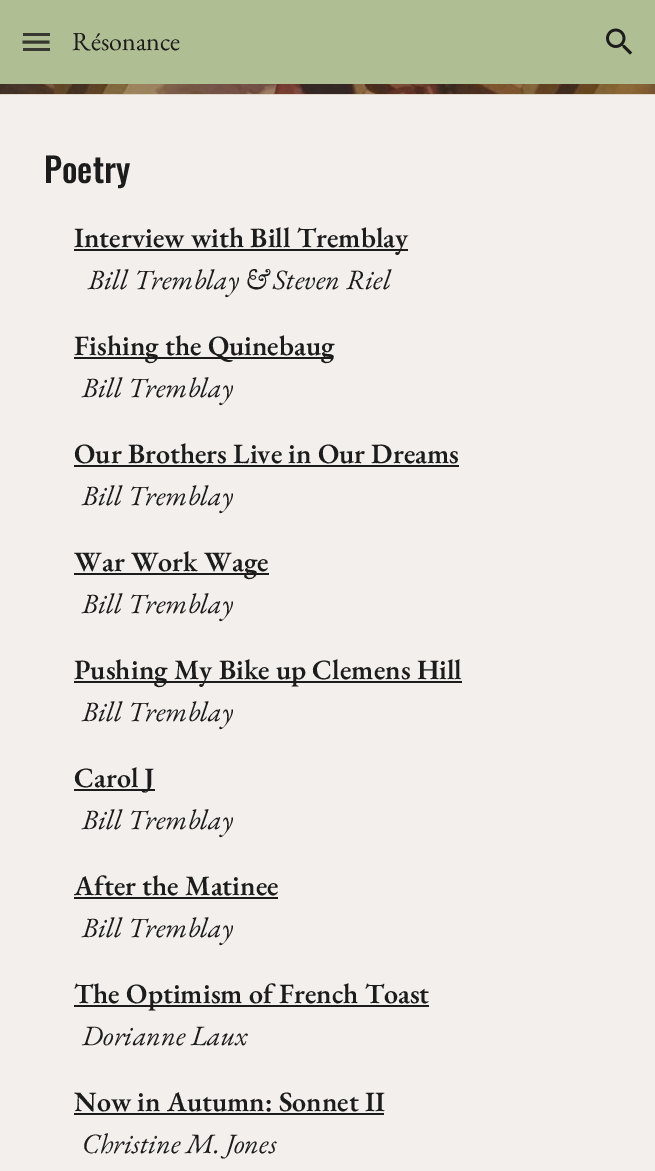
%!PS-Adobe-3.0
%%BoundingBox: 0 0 655 1171
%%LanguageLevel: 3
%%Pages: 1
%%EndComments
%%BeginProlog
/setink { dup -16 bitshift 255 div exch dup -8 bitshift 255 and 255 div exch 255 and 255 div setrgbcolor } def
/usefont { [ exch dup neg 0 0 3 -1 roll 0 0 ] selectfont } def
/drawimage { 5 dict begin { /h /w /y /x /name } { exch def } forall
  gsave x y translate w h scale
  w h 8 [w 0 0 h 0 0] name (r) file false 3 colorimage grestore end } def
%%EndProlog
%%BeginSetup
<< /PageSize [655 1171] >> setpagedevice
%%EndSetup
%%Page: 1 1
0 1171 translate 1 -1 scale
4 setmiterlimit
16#F2EFED setink
0 0 655 1171 rectfill
16#B0BF93 setink
0 0 655 84 rectfill
16#373931 setink
23 33 27 3 rectfill
3 setlinewidth
22.5 42 moveto 49.5 42 lineto stroke
23 48 27 3 rectfill
/EBGaramond-Regular 26 usefont
16#1C1C1C setink
72 50 moveto (Résonance) show
(img1.raw) 606 28 27 27 drawimage
(img2.raw) 0 84 655 10 drawimage
16#E1D6CA setink
0 94 655 1 rectfill
/Oswald-Medium 34 usefont
16#1C1C1C setink
44 183 moveto (Poetry) show
74 249 334 2 rectfill
/EBGaramond-SemiBold 28 usefont
74 247 moveto (Interview with Bill Tremblay) show
/EBGaramond-Italic 28 usefont
88 289 moveto (Bill Tremblay & Steven Riel) show
74 357 259 2 rectfill
/EBGaramond-SemiBold 28 usefont
74 355 moveto (Fishing the Quinebaug) show
/EBGaramond-Italic 28 usefont
82 397 moveto (Bill Tremblay) show
/EBGaramond-SemiBold 28 usefont
74 463 moveto (Our Brothers Live in Our Dreams) show
74 465 385 2 rectfill
/EBGaramond-Italic 28 usefont
82 505 moveto (Bill Tremblay) show
74 573 195 2 rectfill
/EBGaramond-SemiBold 28 usefont
74 571 moveto (War Work Wage) show
/EBGaramond-Italic 28 usefont
82 613 moveto (Bill Tremblay) show
74 681 388 2 rectfill
/EBGaramond-SemiBold 28 usefont
74 679 moveto (Pushing My Bike up Clemens Hill) show
/EBGaramond-Italic 28 usefont
82 721 moveto (Bill Tremblay) show
74 789 81 2 rectfill
/EBGaramond-SemiBold 28 usefont
74 787 moveto (Carol J) show
/EBGaramond-Italic 28 usefont
82 829 moveto (Bill Tremblay) show
/EBGaramond-SemiBold 28 usefont
74 895 moveto (After the Matinee) show
74 897 204 2 rectfill
/EBGaramond-Italic 28 usefont
82 937 moveto (Bill Tremblay) show
74 1005 355 2 rectfill
/EBGaramond-SemiBold 28 usefont
74 1003 moveto (The Optimism of French Toast) show
/EBGaramond-Italic 28 usefont
82 1045 moveto (Dorianne Laux) show
/EBGaramond-SemiBold 28 usefont
74 1111 moveto (Now in Autumn: Sonnet II) show
74 1113 310 2 rectfill
/EBGaramond-Italic 28 usefont
82 1153 moveto (Christine M. Jones) show
showpage
%%EOF
